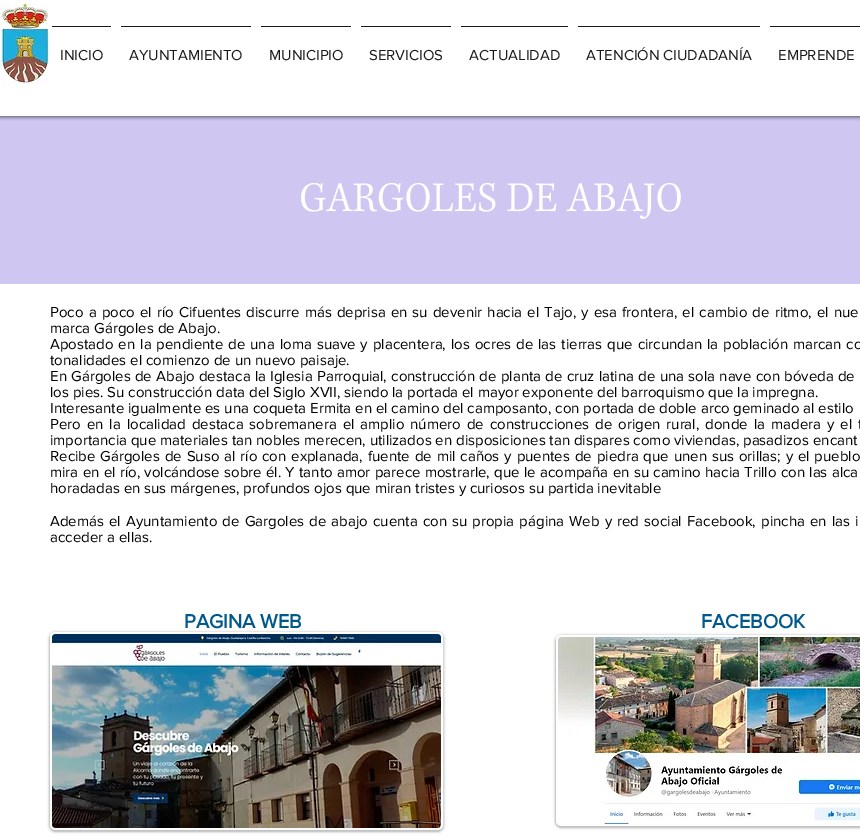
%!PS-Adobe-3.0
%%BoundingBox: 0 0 860 840
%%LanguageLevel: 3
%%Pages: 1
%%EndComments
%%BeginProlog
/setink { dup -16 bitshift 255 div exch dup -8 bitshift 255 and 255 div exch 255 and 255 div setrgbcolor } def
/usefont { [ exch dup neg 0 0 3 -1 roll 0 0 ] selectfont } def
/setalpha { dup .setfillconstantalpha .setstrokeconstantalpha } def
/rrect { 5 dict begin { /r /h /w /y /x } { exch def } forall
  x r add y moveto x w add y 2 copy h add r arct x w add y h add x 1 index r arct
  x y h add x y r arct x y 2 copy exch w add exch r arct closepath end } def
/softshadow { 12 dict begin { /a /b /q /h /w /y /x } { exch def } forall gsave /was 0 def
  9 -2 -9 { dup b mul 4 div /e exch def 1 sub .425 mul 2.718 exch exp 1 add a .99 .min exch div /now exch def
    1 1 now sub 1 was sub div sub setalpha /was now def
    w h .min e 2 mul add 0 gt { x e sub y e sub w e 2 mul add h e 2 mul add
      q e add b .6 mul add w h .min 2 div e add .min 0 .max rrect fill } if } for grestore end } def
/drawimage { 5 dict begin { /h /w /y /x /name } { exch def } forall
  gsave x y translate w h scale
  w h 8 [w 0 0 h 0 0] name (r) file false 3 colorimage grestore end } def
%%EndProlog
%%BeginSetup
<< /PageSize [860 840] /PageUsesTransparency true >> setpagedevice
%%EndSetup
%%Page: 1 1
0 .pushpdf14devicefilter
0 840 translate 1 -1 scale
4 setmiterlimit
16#FFFFFF setink
0 0 860 840 rectfill
16#CFC7F2 setink
0 116 860 168 rectfill
gsave
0 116 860 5 rectclip
16#000000 setink
0 1 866 116 0 2 0.6 softshadow
grestore
(img1.raw) 0 4 49 81 drawimage
16#1A1A1A setink
52 26 59 1 rectfill
/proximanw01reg-Regular 15 usefont
60 60 moveto (INICIO) show
121 26 130 1 rectfill
129 60 moveto (AYUNTAMIENTO) show
261 26 90 1 rectfill
269 60 moveto (MUNICIPIO) show
361 26 90 1 rectfill
369 60 moveto (SERVICIOS) show
461 26 107 1 rectfill
469 60 moveto (ACTUALIDAD) show
578 26 182 1 rectfill
586 60 moveto (ATENCIÓN CIUDADANÍA) show
770 26 90 1 rectfill
778 60 moveto (EMPRENDE) show
(img2.raw) 301 182 380 37 drawimage
16#000000 setink
50 317 moveto 1.25 0 32 (Poco a poco el río Cifuentes discurre más deprisa en su devenir hacia el Tajo, y esa frontera, el cambio de ritmo, el nue) widthshow
50 333 moveto (marca Gárgoles de Abajo.) show
50 349 moveto 1.1 0 32 (Apostado en la pendiente de una loma suave y placentera, los ocres de las tierras que circundan la población marcan co) widthshow
50 365 moveto (tonalidades el comienzo de un nuevo paisaje.) show
50 381 moveto 0.4 0 32 (En Gárgoles de Abajo destaca la Iglesia Parroquial, construcción de planta de cruz latina de una sola nave con bóveda de) widthshow
50 397 moveto (los pies. Su construcción data del Siglo XVII, siendo la portada el mayor exponente del barroquismo que la impregna.) show
50 413 moveto (Interesante igualmente es una coqueta Ermita en el camino del camposanto, con portada de doble arco geminado al estilo) show
50 429 moveto 2.1 0 32 (Pero en la localidad destaca sobremanera el amplio número de construcciones de origen rural, donde la madera y el t) widthshow
50 445 moveto (importancia que materiales tan nobles merecen, utilizados en disposiciones tan dispares como viviendas, pasadizos encant) show
50 461 moveto 1 0 32 (Recibe Gárgoles de Suso al río con explanada, fuente de mil caños y puentes de piedra que unen sus orillas; y el pueblo) widthshow
50 477 moveto 0.4 0 32 (mira en el río, volcándose sobre él. Y tanto amor parece mostrarle, que le acompaña en su camino hacia Trillo con las alca) widthshow
50 493 moveto (horadadas en sus márgenes, profundos ojos que miran tristes y curiosos su partida inevitable) show
50 526 moveto 1.25 0 32 (Además el Ayuntamiento de Gargoles de abajo cuenta con su propia página Web y red social Facebook, pincha en las i) widthshow
50 542 moveto (acceder a ellas.) show
/proximanw01reg-Bold 20 usefont
16#015989 setink
184 628 moveto (PAGINA WEB) show
701 628 moveto (FACEBOOK) show
16#000000 setink
50 633 393 198 5 1.5 0.5 softshadow
16#FFFFFF setink
51 633 391 196 4 rrect gsave fill grestore
2 setlinewidth
stroke
(img3.raw) 52 634 389 194 drawimage
16#000000 setink
556 636 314 191 5 1.5 0.5 softshadow
16#FFFFFF setink
557 636 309 189 4 rrect gsave fill grestore
stroke
(img4.raw) 558 637 302 187 drawimage
.poppdf14devicefilter showpage
%%EOF
